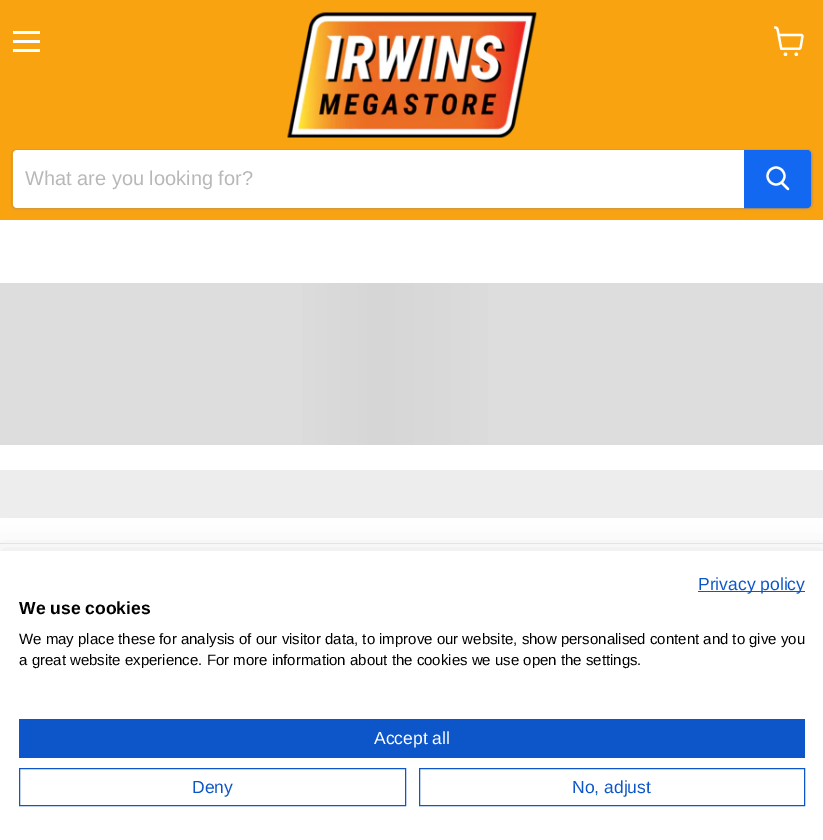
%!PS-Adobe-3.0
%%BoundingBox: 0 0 823 840
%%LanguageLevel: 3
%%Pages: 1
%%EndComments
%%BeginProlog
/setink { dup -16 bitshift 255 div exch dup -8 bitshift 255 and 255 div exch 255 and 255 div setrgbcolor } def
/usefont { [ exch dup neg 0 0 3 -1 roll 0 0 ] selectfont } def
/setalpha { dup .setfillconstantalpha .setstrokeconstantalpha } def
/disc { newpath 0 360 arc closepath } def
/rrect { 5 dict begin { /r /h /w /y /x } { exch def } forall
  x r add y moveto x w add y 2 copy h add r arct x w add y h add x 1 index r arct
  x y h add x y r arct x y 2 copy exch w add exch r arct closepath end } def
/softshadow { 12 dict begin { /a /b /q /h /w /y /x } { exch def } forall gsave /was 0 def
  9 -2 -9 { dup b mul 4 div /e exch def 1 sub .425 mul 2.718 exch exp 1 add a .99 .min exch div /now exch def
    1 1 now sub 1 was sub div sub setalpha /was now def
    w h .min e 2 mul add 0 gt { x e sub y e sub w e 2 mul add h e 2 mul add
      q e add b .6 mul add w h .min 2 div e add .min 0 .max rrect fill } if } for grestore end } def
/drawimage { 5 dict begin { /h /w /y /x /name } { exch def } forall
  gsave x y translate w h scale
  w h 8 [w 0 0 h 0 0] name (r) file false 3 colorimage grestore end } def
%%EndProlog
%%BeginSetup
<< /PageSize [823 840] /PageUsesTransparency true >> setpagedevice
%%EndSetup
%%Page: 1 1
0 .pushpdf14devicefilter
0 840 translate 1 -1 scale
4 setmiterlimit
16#FFFFFF setink
0 0 823 840 rectfill
[
    [0 0 823 220 16#FAA311]
    [13 31 27 3 16#FFFFFF]
    [13 40 27 3 16#FFFFFF]
    [13 49 27 3 16#FFFFFF]
] { aload pop setink rectfill } forall
(img1.raw) 774 26 30 30 drawimage
(img2.raw) 287 12 250 126 drawimage
16#808080 setink
11 151 802 60 5 2 0.11 softshadow
0.2 setalpha
11.5 149.5 801 59 4.5 rrect stroke
1 setalpha
16#FFFFFF setink
17 150 moveto 744 150 lineto 744 208 lineto 17 208 lineto 15 208 13 206 13 204 curveto 13 154 lineto 13 152 15 150 17 150 curveto closepath fill
/LiberationSans-Regular 20 usefont
16#B8B8B8 setink
25 185 moveto (What are you looking for?) show
16#1268F1 setink
744.5 150.5 moveto 807 150.5 lineto 809 150.5 810.5 152 810.5 154 curveto 810.5 204 lineto 810.5 206 809 207.5 807 207.5 curveto 744.5 207.5 lineto closepath gsave fill grestore
stroke
16#FFFFFF setink
2.2 setlinewidth
1 setlinecap
788 189 moveto 782 183 lineto stroke
0 setlinecap
776 176 8.5 disc stroke
16#DDDDDD setink
0 283 228 162 rectfill
gsave 228 283 moveto 823 283 lineto 823 445 lineto 228 445 lineto closepath clip newpath
<< /ShadingType 2 /ColorSpace /DeviceRGB /Coords [228 283 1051 283] /Extend [true true] /Function << /FunctionType 3 /Domain [0 1] /Functions [<< /FunctionType 2 /Domain [0 1] /C0 [0.867 0.867 0.867] /C1 [0.867 0.867 0.867] /N 1 >> << /FunctionType 2 /Domain [0 1] /C0 [0.867 0.867 0.867] /C1 [0.839 0.839 0.839] /N 1 >> << /FunctionType 2 /Domain [0 1] /C0 [0.839 0.839 0.839] /C1 [0.867 0.867 0.867] /N 1 >> << /FunctionType 2 /Domain [0 1] /C0 [0.867 0.867 0.867] /C1 [0.867 0.867 0.867] /N 1 >>] /Bounds [0.08 0.18 0.33] /Encode [0 1 0 1 0 1 0 1] >> >> shfill grestore
16#EDEDED setink
0 470 823 48 rectfill
16#EBEBEB setink
0 543 823 1 rectfill
16#000000 setink
0 551 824 289 0 15 0.1 softshadow
16#FFFFFF setink
0 551 823 289 rectfill
16#0D56C9 setink
698 591 107 1 rectfill
/LiberationSans-Regular 17.5 usefont
698 590 moveto (Privacy policy) show
/LiberationSans-Bold 17.5 usefont
16#000000 setink
19 614 moveto (We use cookies) show
/LiberationSans-Regular 15 usefont
19 644 moveto (We may place these for analysis of our visitor data, to improve our website, show personalised content and to give you) show
19 665 moveto (a great website experience. For more information about the cookies we use open the settings.) show
16#0D56C9 setink
19 719 786 39 rectfill
/LiberationSans-Regular 17.5 usefont
16#FFFFFF setink
374 744 moveto (Accept all) show
16#0D56C9 setink
1 setlinewidth
19.5 768.5 386 37 rectstroke
192 793 moveto (Deny) show
419.5 768.5 385 37 rectstroke
572 793 moveto (No, adjust) show
.poppdf14devicefilter showpage
%%EOF
